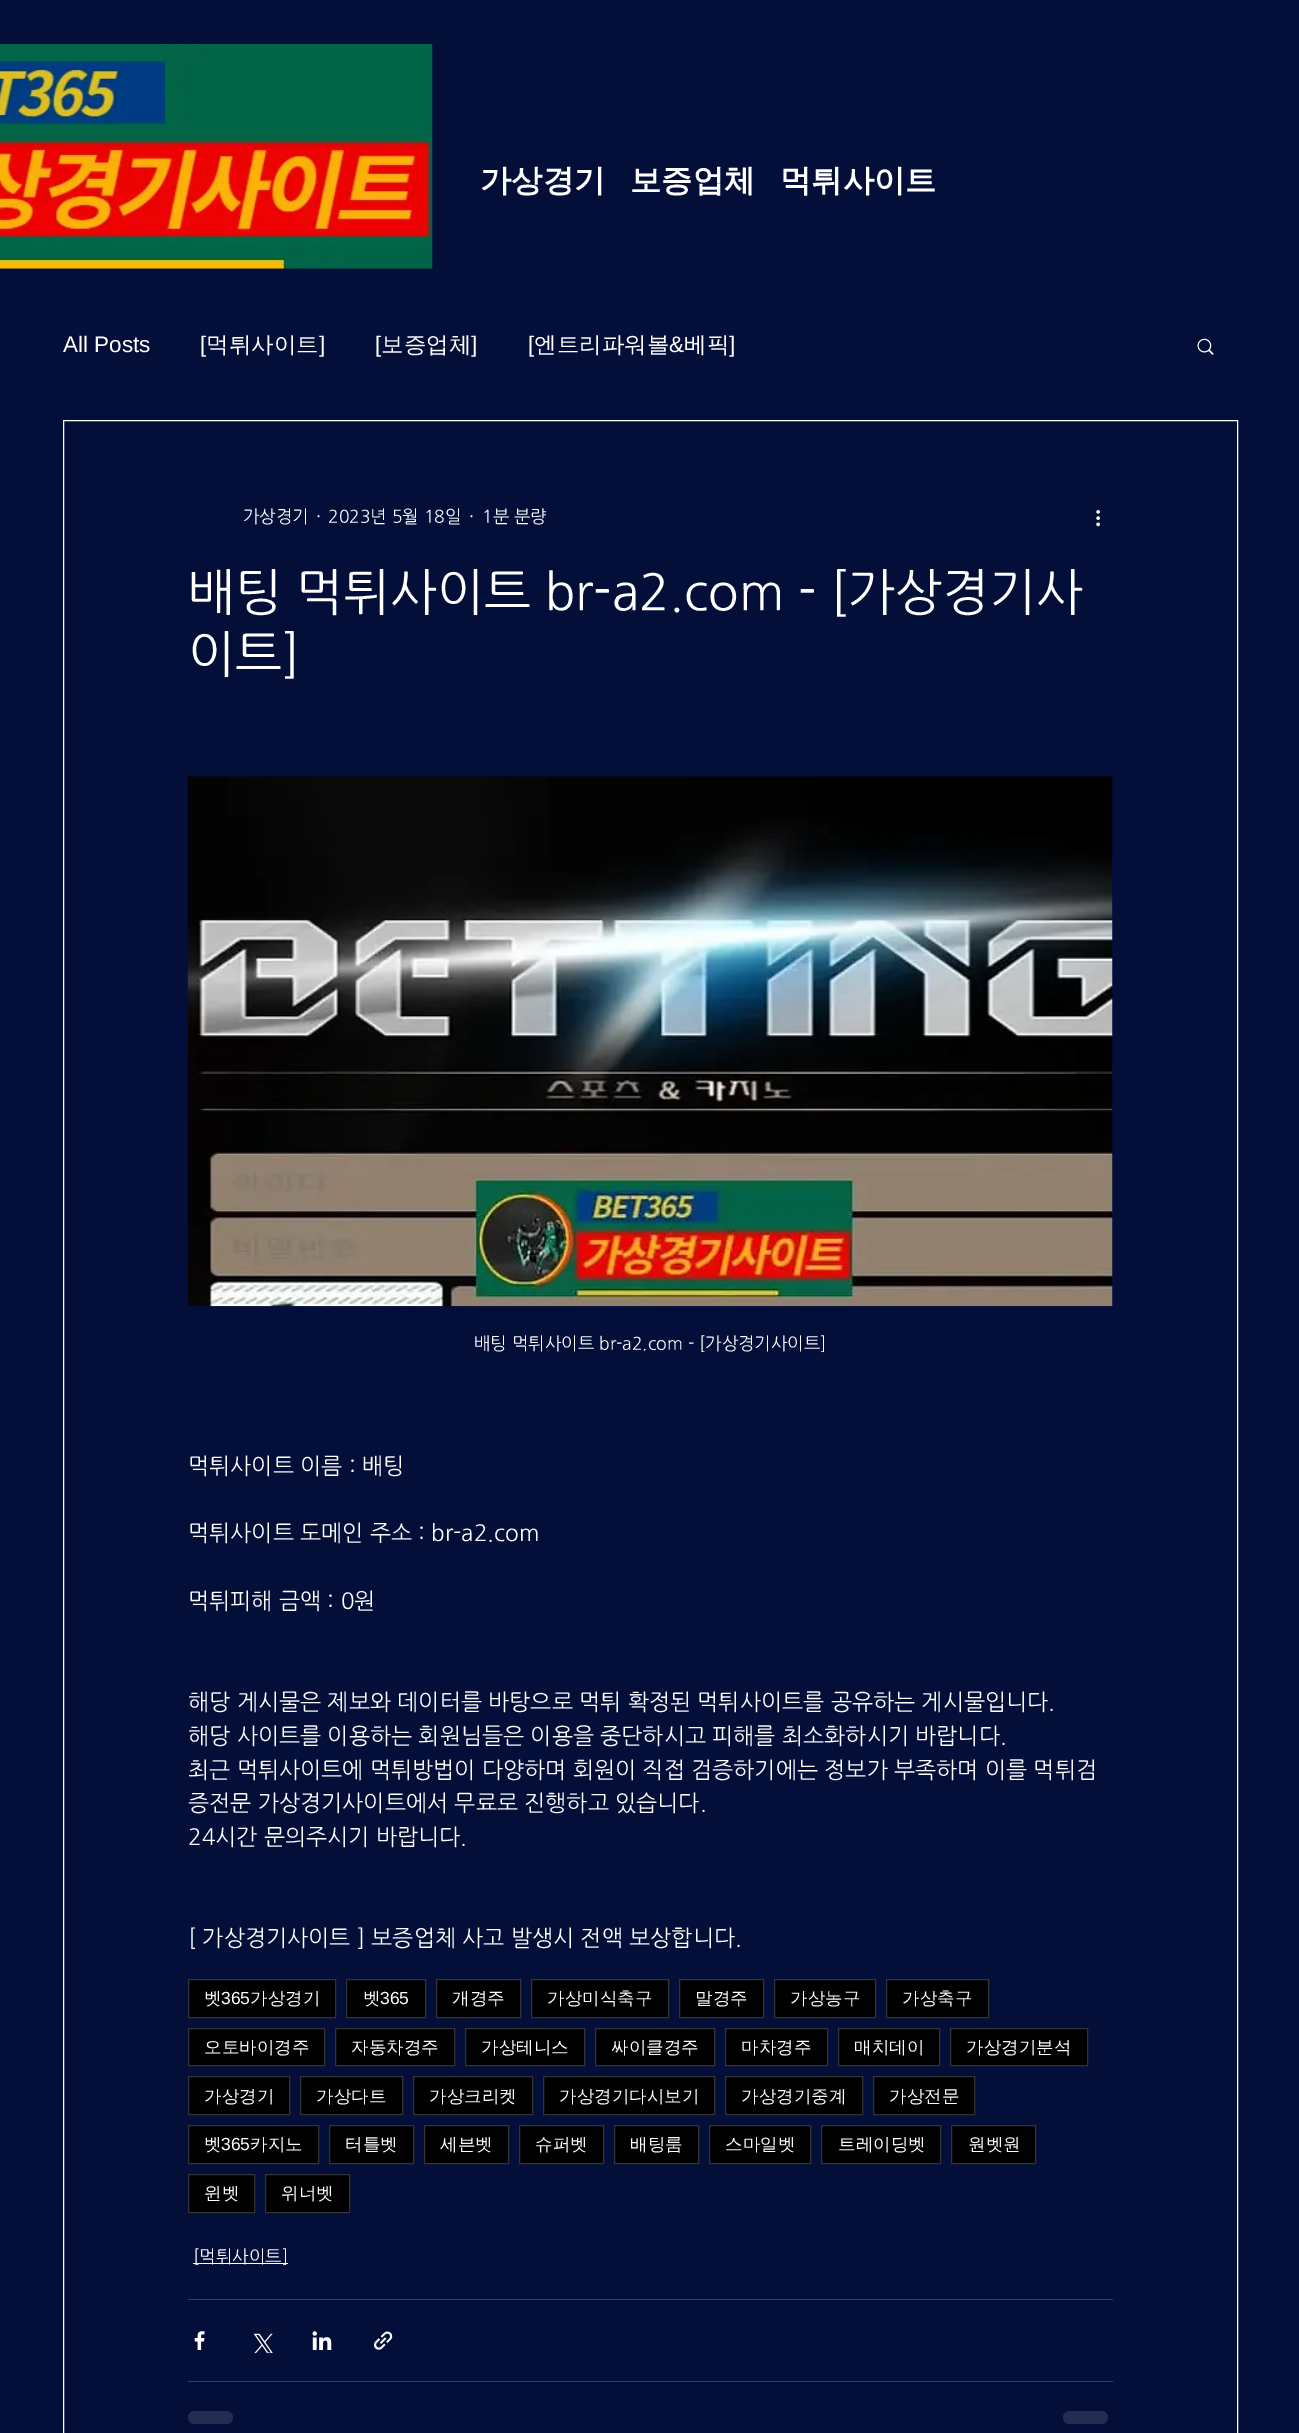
%!PS-Adobe-3.0
%%BoundingBox: 0 0 1299 2433
%%LanguageLevel: 3
%%Pages: 1
%%EndComments
%%BeginProlog
/setink { dup -16 bitshift 255 div exch dup -8 bitshift 255 and 255 div exch 255 and 255 div setrgbcolor } def
/usefont { [ exch dup neg 0 0 3 -1 roll 0 0 ] selectfont } def
/rrect { 5 dict begin { /r /h /w /y /x } { exch def } forall
  x r add y moveto x w add y 2 copy h add r arct x w add y h add x 1 index r arct
  x y h add x y r arct x y 2 copy exch w add exch r arct closepath end } def
/drawimage { 5 dict begin { /h /w /y /x /name } { exch def } forall
  gsave x y translate w h scale
  w h 8 [w 0 0 h 0 0] name (r) file false 3 colorimage grestore end } def
%%EndProlog
%%BeginSetup
<< /PageSize [1299 2433] >> setpagedevice
%%EndSetup
%%Page: 1 1
0 2433 translate 1 -1 scale
4 setmiterlimit
16#030F38 setink
0 0 1299 2433 rectfill
(img1.raw) 0 43 433 226 drawimage
/WenQuanYiZenHei-Bold 31.25 usefont
16#FFFFFF setink
[
    [(가상경기) 480 191]
    [(보증업체) 630 191]
    [(먹튀사이트) 780 191]
] { aload pop moveto show } forall
/LiberationSans-Regular 22.5 usefont
63 352 moveto (All Posts) show
200 352 moveto ([) show
/WenQuanYiZenHei-Medium 22.5 usefont
206 352 moveto (먹튀사이트) show
/LiberationSans-Regular 22.5 usefont
319 352 moveto (]) show
375 352 moveto ([) show
/WenQuanYiZenHei-Medium 22.5 usefont
381 352 moveto (보증업체) show
/LiberationSans-Regular 22.5 usefont
471 352 moveto (]) show
528 352 moveto ([) show
/WenQuanYiZenHei-Medium 22.5 usefont
534 352 moveto (엔트리파워볼) show
/LiberationSans-Regular 22.5 usefont
669 352 moveto (&) show
/WenQuanYiZenHei-Medium 22.5 usefont
684 352 moveto (베픽) show
/LiberationSans-Regular 22.5 usefont
729 352 moveto (]) show
(img2.raw) 1197 338 17 17 drawimage
63.5 420.5 1174 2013 rectstroke
/NanumGothic-Regular 17.5 usefont
[
    [(가상경기) 243 522]
    [(·) 316 522]
    [(2023년 5월 18일) 328 522]
    [(·) 469 522]
] { aload pop moveto show } forall
gsave
461 504 85 26 rectclip
482 522 moveto (1분 분량) show
grestore
(img3.raw) 1096 510 4 17 drawimage
/NanumGothic-Regular 50 usefont
188 608 moveto (배팅 먹튀사이트 br-a2.com - [가상경기사) show
188 670 moveto (이트]) show
(img4.raw) 187 776 926 531 drawimage
/NanumGothic-Regular 17.5 usefont
474 1349 moveto (배팅 먹튀사이트 br-a2.com - [가상경기사이트]) show
/NanumGothic-Regular 22.5 usefont
[
    [(먹튀사이트 이름 : 배팅) 188 1473]
    [(먹튀사이트 도메인 주소 : br-a2.com) 188 1540]
    [(먹튀피해 금액 : 0원) 188 1608]
    [(해당 게시물은 제보와 데이터를 바탕으로 먹튀 확정된 먹튀사이트를 공유하는 게시물입니다.) 188 1709]
    [(해당 사이트를 이용하는 회원님들은 이용을 중단하시고 피해를 최소화하시기 바랍니다.) 188 1743]
    [(최근 먹튀사이트에 먹튀방법이 다양하며 회원이 직접 검증하기에는 정보가 부족하며 이를 먹튀검) 188 1777]
    [(증전문 가상경기사이트에서 무료로 진행하고 있습니다.) 188 1810]
    [(24시간 문의주시기 바랍니다.) 188 1844]
    [([ 가상경기사이트 ] 보증업체 사고 발생시 전액 보상합니다.) 188 1945]
] { aload pop moveto show } forall
16#000000 setink
188.5 1979.5 moveto 335.5 1979.5 lineto 335.5 2017.5 lineto 188.5 2017.5 lineto closepath gsave fill grestore
16#333333 setink
stroke
/WenQuanYiZenHei-Medium 17.5 usefont
16#FFFFFF setink
204 2004 moveto (벳) show
/LiberationSans-Regular 17.5 usefont
221 2004 moveto (365) show
/WenQuanYiZenHei-Medium 17.5 usefont
250 2004 moveto (가상경기) show
16#000000 setink
346.5 1979.5 moveto 425.5 1979.5 lineto 425.5 2017.5 lineto 346.5 2017.5 lineto closepath gsave fill grestore
16#333333 setink
stroke
16#FFFFFF setink
363 2004 moveto (벳) show
/LiberationSans-Regular 17.5 usefont
380 2004 moveto (365) show
16#000000 setink
436.5 1979.5 moveto 520.5 1979.5 lineto 520.5 2017.5 lineto 436.5 2017.5 lineto closepath gsave fill grestore
16#333333 setink
stroke
/WenQuanYiZenHei-Medium 17.5 usefont
16#FFFFFF setink
452 2004 moveto (개경주) show
16#000000 setink
531.5 1979.5 moveto 668.5 1979.5 lineto 668.5 2017.5 lineto 531.5 2017.5 lineto closepath gsave fill grestore
16#333333 setink
stroke
16#FFFFFF setink
547 2004 moveto (가상미식축구) show
16#000000 setink
679.5 1979.5 moveto 763.5 1979.5 lineto 763.5 2017.5 lineto 679.5 2017.5 lineto closepath gsave fill grestore
16#333333 setink
stroke
16#FFFFFF setink
695 2004 moveto (말경주) show
16#000000 setink
774.5 1979.5 moveto 875.5 1979.5 lineto 875.5 2017.5 lineto 774.5 2017.5 lineto closepath gsave fill grestore
16#333333 setink
stroke
16#FFFFFF setink
790 2004 moveto (가상농구) show
16#000000 setink
886.5 1979.5 moveto 988.5 1979.5 lineto 988.5 2017.5 lineto 886.5 2017.5 lineto closepath gsave fill grestore
16#333333 setink
stroke
16#FFFFFF setink
902 2004 moveto (가상축구) show
16#000000 setink
188.5 2028.5 moveto 324.5 2028.5 lineto 324.5 2065.5 lineto 188.5 2065.5 lineto closepath gsave fill grestore
16#333333 setink
stroke
16#FFFFFF setink
204 2053 moveto (오토바이경주) show
16#000000 setink
335.5 2028.5 moveto 454.5 2028.5 lineto 454.5 2065.5 lineto 335.5 2065.5 lineto closepath gsave fill grestore
16#333333 setink
stroke
16#FFFFFF setink
351 2053 moveto (자동차경주) show
16#000000 setink
465.5 2028.5 moveto 584.5 2028.5 lineto 584.5 2065.5 lineto 465.5 2065.5 lineto closepath gsave fill grestore
16#333333 setink
stroke
16#FFFFFF setink
481 2053 moveto (가상테니스) show
16#000000 setink
595.5 2028.5 moveto 714.5 2028.5 lineto 714.5 2065.5 lineto 595.5 2065.5 lineto closepath gsave fill grestore
16#333333 setink
stroke
16#FFFFFF setink
611 2053 moveto (싸이클경주) show
16#000000 setink
725.5 2028.5 moveto 827.5 2028.5 lineto 827.5 2065.5 lineto 725.5 2065.5 lineto closepath gsave fill grestore
16#333333 setink
stroke
16#FFFFFF setink
741 2053 moveto (마차경주) show
16#000000 setink
838.5 2028.5 moveto 939.5 2028.5 lineto 939.5 2065.5 lineto 838.5 2065.5 lineto closepath gsave fill grestore
16#333333 setink
stroke
16#FFFFFF setink
854 2053 moveto (매치데이) show
16#000000 setink
950.5 2028.5 moveto 1087.5 2028.5 lineto 1087.5 2065.5 lineto 950.5 2065.5 lineto closepath gsave fill grestore
16#333333 setink
stroke
16#FFFFFF setink
966 2053 moveto (가상경기분석) show
16#000000 setink
188.5 2076.5 moveto 289.5 2076.5 lineto 289.5 2114.5 lineto 188.5 2114.5 lineto closepath gsave fill grestore
16#333333 setink
stroke
16#FFFFFF setink
204 2102 moveto (가상경기) show
16#000000 setink
300.5 2076.5 moveto 402.5 2076.5 lineto 402.5 2114.5 lineto 300.5 2114.5 lineto closepath gsave fill grestore
16#333333 setink
stroke
16#FFFFFF setink
316 2102 moveto (가상다트) show
16#000000 setink
413.5 2076.5 moveto 532.5 2076.5 lineto 532.5 2114.5 lineto 413.5 2114.5 lineto closepath gsave fill grestore
16#333333 setink
stroke
16#FFFFFF setink
429 2102 moveto (가상크리켓) show
16#000000 setink
543.5 2076.5 moveto 714.5 2076.5 lineto 714.5 2114.5 lineto 543.5 2114.5 lineto closepath gsave fill grestore
16#333333 setink
stroke
16#FFFFFF setink
559 2102 moveto (가상경기다시보기) show
16#000000 setink
725.5 2076.5 moveto 862.5 2076.5 lineto 862.5 2114.5 lineto 725.5 2114.5 lineto closepath gsave fill grestore
16#333333 setink
stroke
16#FFFFFF setink
741 2102 moveto (가상경기중계) show
16#000000 setink
873.5 2076.5 moveto 974.5 2076.5 lineto 974.5 2114.5 lineto 873.5 2114.5 lineto closepath gsave fill grestore
16#333333 setink
stroke
16#FFFFFF setink
889 2102 moveto (가상전문) show
16#000000 setink
188.5 2125.5 moveto 318.5 2125.5 lineto 318.5 2163.5 lineto 188.5 2163.5 lineto closepath gsave fill grestore
16#333333 setink
stroke
16#FFFFFF setink
204 2150 moveto (벳) show
/LiberationSans-Regular 17.5 usefont
221 2150 moveto (365) show
/WenQuanYiZenHei-Medium 17.5 usefont
250 2150 moveto (카지노) show
16#000000 setink
329.5 2125.5 moveto 413.5 2125.5 lineto 413.5 2163.5 lineto 329.5 2163.5 lineto closepath gsave fill grestore
16#333333 setink
stroke
16#FFFFFF setink
345 2150 moveto (터틀벳) show
16#000000 setink
424.5 2125.5 moveto 508.5 2125.5 lineto 508.5 2163.5 lineto 424.5 2163.5 lineto closepath gsave fill grestore
16#333333 setink
stroke
16#FFFFFF setink
440 2150 moveto (세븐벳) show
16#000000 setink
519.5 2125.5 moveto 603.5 2125.5 lineto 603.5 2163.5 lineto 519.5 2163.5 lineto closepath gsave fill grestore
16#333333 setink
stroke
16#FFFFFF setink
535 2150 moveto (슈퍼벳) show
16#000000 setink
614.5 2125.5 moveto 698.5 2125.5 lineto 698.5 2163.5 lineto 614.5 2163.5 lineto closepath gsave fill grestore
16#333333 setink
stroke
16#FFFFFF setink
630 2150 moveto (배팅룸) show
16#000000 setink
709.5 2125.5 moveto 810.5 2125.5 lineto 810.5 2163.5 lineto 709.5 2163.5 lineto closepath gsave fill grestore
16#333333 setink
stroke
16#FFFFFF setink
725 2150 moveto (스마일벳) show
16#000000 setink
821.5 2125.5 moveto 940.5 2125.5 lineto 940.5 2163.5 lineto 821.5 2163.5 lineto closepath gsave fill grestore
16#333333 setink
stroke
16#FFFFFF setink
838 2150 moveto (트레이딩벳) show
16#000000 setink
951.5 2125.5 moveto 1035.5 2125.5 lineto 1035.5 2163.5 lineto 951.5 2163.5 lineto closepath gsave fill grestore
16#333333 setink
stroke
16#FFFFFF setink
968 2150 moveto (원벳원) show
16#000000 setink
188.5 2174.5 moveto 254.5 2174.5 lineto 254.5 2212.5 lineto 188.5 2212.5 lineto closepath gsave fill grestore
16#333333 setink
stroke
16#FFFFFF setink
204 2199 moveto (윈벳) show
16#000000 setink
265.5 2174.5 moveto 349.5 2174.5 lineto 349.5 2212.5 lineto 265.5 2212.5 lineto closepath gsave fill grestore
16#333333 setink
stroke
16#FFFFFF setink
281 2199 moveto (위너벳) show
193 2263 95 1 rectfill
/NanumGothic-Regular 17.5 usefont
193 2262 moveto ([먹튀사이트]) show
16#353F60 setink
188 2299 925 1 rectfill
(img5.raw) 194 2331 11 19 drawimage
(img6.raw) 253 2333 20 20 drawimage
(img7.raw) 312 2331 20 19 drawimage
(img8.raw) 374 2331 19 19 drawimage
188 2381 925 1 rectfill
16#212C50 setink
188 2411 45 13 6.5 rrect fill
1063 2411 45 13 6.5 rrect fill
showpage
%%EOF
